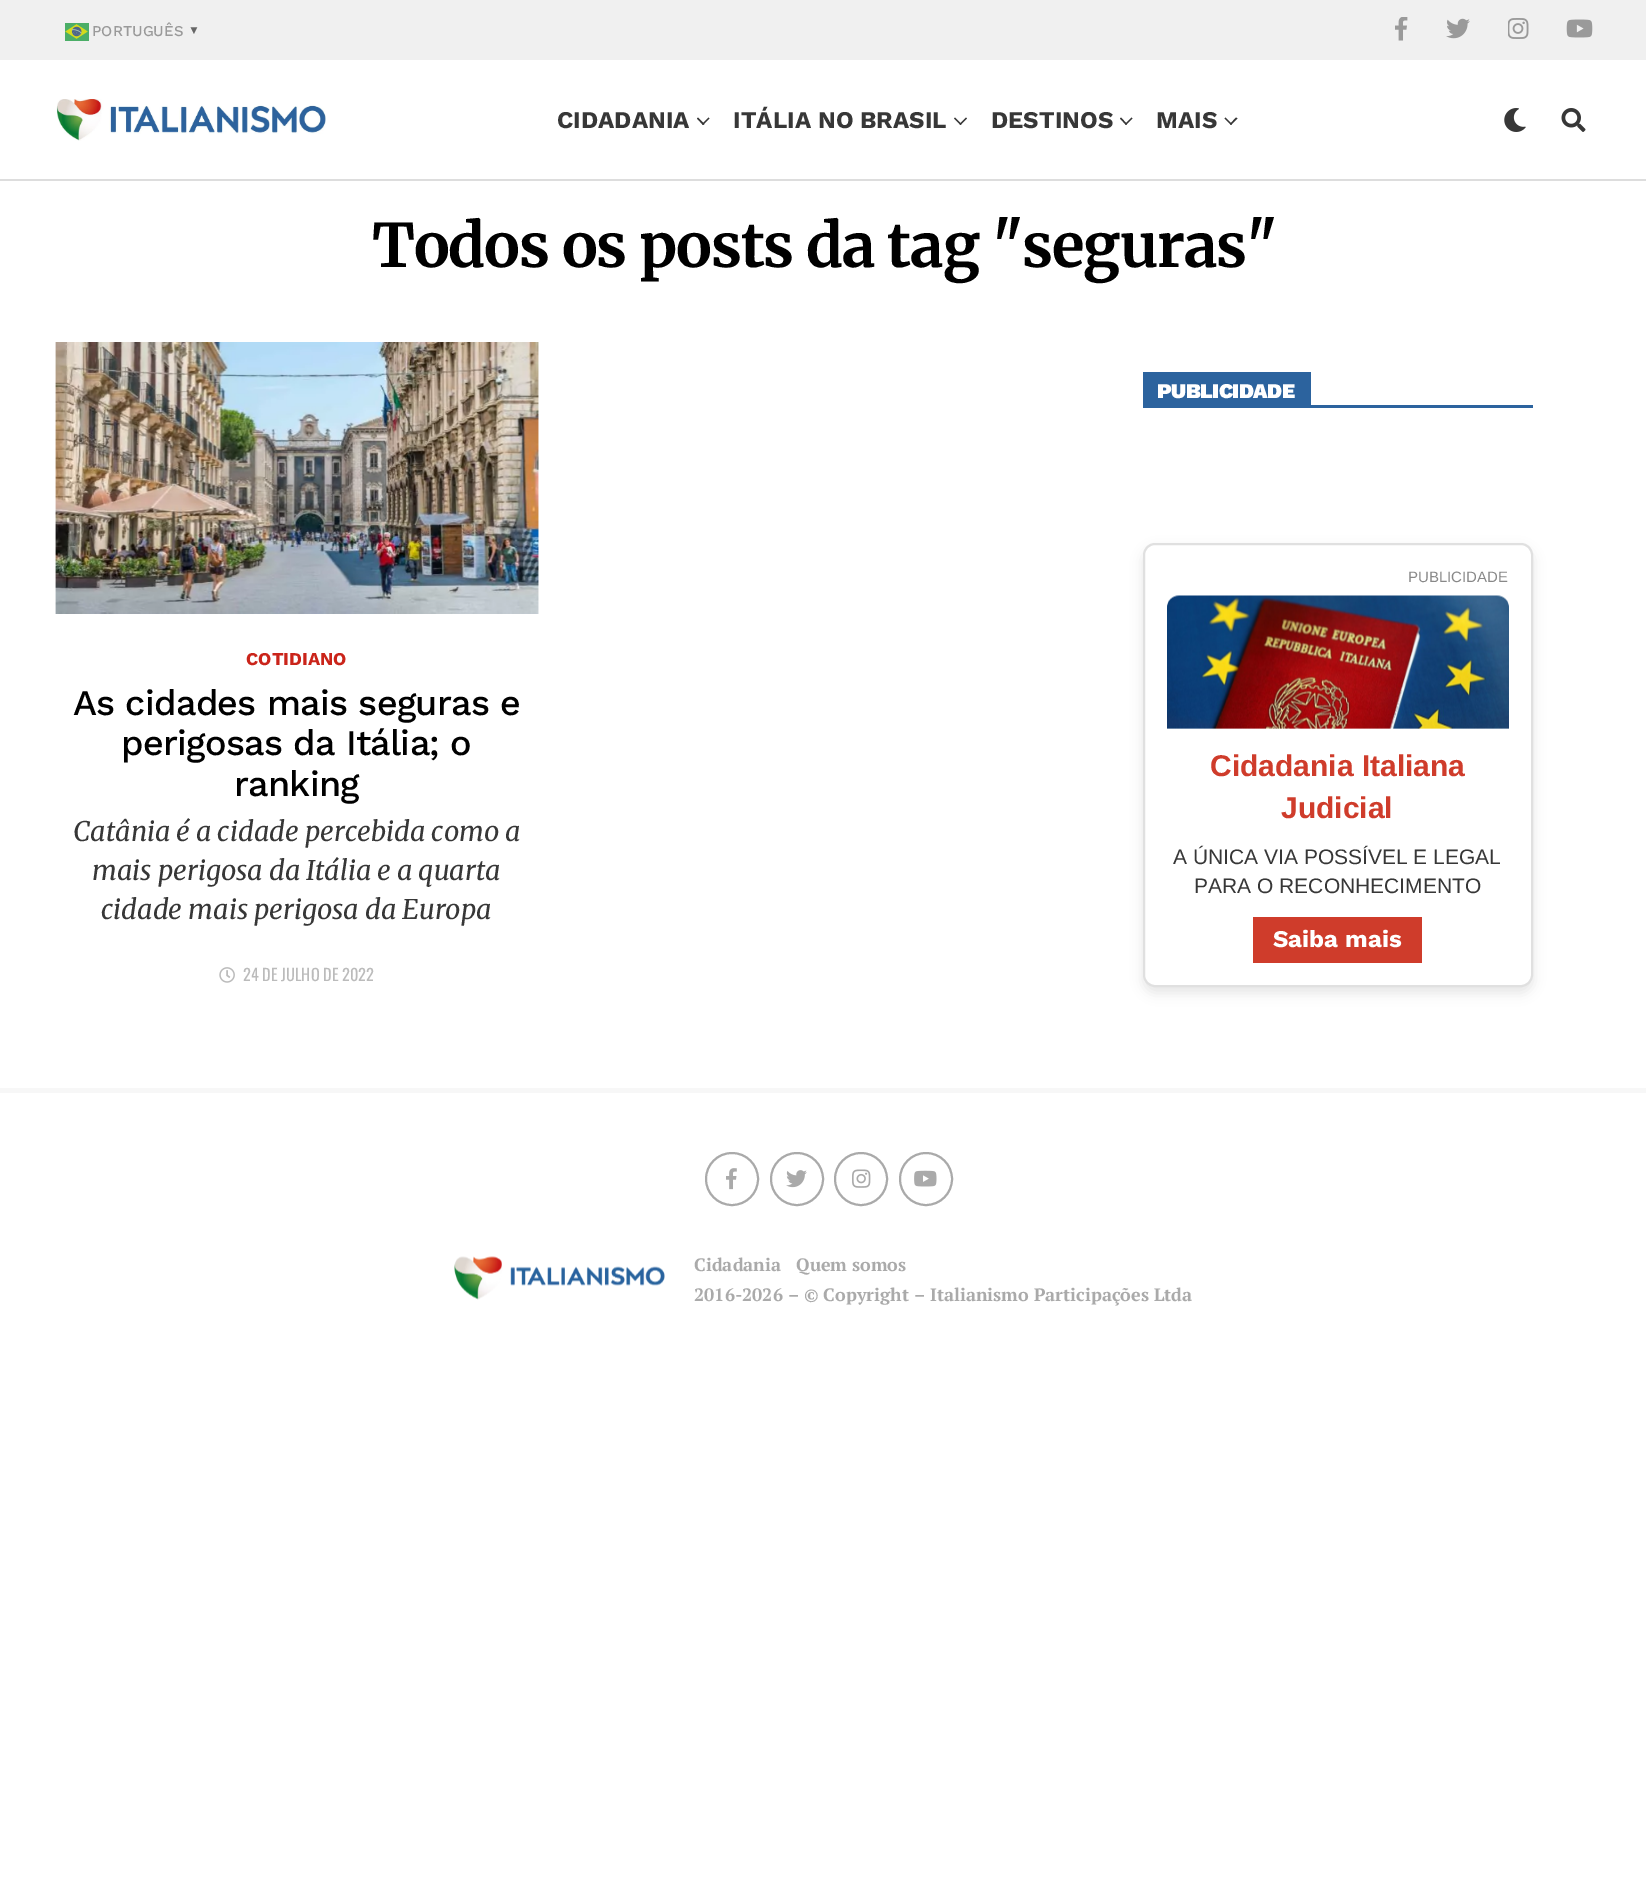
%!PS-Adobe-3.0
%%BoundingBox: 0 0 1646 1903
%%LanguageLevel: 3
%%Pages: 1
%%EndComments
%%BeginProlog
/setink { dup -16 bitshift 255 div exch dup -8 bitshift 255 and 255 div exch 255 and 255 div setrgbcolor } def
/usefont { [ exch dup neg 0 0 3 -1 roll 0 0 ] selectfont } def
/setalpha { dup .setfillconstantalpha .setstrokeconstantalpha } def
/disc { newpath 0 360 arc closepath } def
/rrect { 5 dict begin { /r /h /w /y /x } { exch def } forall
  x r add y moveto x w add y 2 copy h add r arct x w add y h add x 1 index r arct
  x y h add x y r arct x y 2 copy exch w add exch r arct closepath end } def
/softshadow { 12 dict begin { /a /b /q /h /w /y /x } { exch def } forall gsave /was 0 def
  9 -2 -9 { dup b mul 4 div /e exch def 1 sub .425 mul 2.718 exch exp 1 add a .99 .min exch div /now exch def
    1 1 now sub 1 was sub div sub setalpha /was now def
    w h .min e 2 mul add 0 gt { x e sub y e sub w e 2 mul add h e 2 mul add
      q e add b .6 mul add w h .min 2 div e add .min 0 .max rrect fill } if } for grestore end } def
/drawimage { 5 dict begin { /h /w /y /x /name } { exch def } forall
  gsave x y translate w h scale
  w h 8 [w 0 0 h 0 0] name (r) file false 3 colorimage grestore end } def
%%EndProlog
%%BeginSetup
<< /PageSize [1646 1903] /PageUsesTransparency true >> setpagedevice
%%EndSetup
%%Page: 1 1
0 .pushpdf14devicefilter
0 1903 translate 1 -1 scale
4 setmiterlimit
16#FFFFFF setink
0 0 1646 1903 rectfill
16#F0F0F0 setink
0 0 1646 60 rectfill
(img1.raw) 65 23 24 18 drawimage
/WorkSans-Medium 15 usefont
16#9A9A9A setink
92 36 moveto (PORTUGUÊS) show
/LiberationSans-Bold 12 usefont
16#666666 setink
188 34 moveto (▼) show
(img2.raw) 1395 17 13 24 drawimage
(img3.raw) 1446 18 24 21 drawimage
(img4.raw) 1508 18 21 21 drawimage
(img5.raw) 1566 19 27 19 drawimage
16#DDDDDD setink
0 179 1646 2 rectfill
(img6.raw) 56 99 270 42 drawimage
/WorkSans-Bold 24 usefont
16#373737 setink
557 128 moveto (CIDADANIA) show
708.5 117.5 moveto 709.5 118.5 lineto 703 125 lineto 702 124 lineto closepath fill
698 117.5 moveto 704.5 124 lineto 703 125 lineto 697 118.5 lineto closepath fill
733 128 moveto (ITÁLIA NO BRASIL) show
966 117.5 moveto 967 118.5 lineto 960.5 125 lineto 959.5 124 lineto closepath fill
955 117.5 moveto 961.5 124 lineto 960.5 125 lineto 954 118.5 lineto closepath fill
991 128 moveto (DESTINOS) show
1131.5 117.5 moveto 1132.5 118.5 lineto 1126 125 lineto 1125 124 lineto closepath fill
1121 117.5 moveto 1127 124 lineto 1126 125 lineto 1120 118.5 lineto closepath fill
1156 128 moveto (MAIS) show
1236 117.5 moveto 1237.5 118.5 lineto 1231 125 lineto 1230 124 lineto closepath fill
1225.5 117.5 moveto 1232 124 lineto 1231 125 lineto 1224.5 118.5 lineto closepath fill
(img7.raw) 1504 108 22 24 drawimage
(img8.raw) 1561 108 25 24 drawimage
/Merriweather-Bold 60 usefont
16#000000 setink
372 267 moveto -1.2 0 (Todos os posts da tag "seguras") ashow
(img9.raw) 55 342 484 272 drawimage
/WorkSans-Bold 18 usefont
16#CA241A setink
246 665 moveto (COTIDIANO) show
/WorkSans-Medium 36 usefont
16#000000 setink
73 715 moveto -0.75 0 (As cidades mais seguras e) ashow
121 755 moveto -0.75 0 (perigosas da Itália; o) ashow
234 796 moveto -0.75 0 (ranking) ashow
/Merriweather-Italic 27 usefont
16#373737 setink
[
    [(Catânia é a cidade percebida como a) 73 841]
    [(mais perigosa da Itália e a quarta) 92 880]
    [(cidade mais perigosa da Europa) 101 919]
] { aload pop moveto show } forall
(img10.raw) 219 967 16 16 drawimage
/Oswald-Regular 16.25 usefont
16#BBBBBB setink
243 981 moveto (24 DE JULHO DE 2022) show
16#2C639E setink
1143 405 390 3 rectfill
1143 372 168 33 rectfill
/WorkSans-Black 21 usefont
16#FFFFFF setink
1157 398 moveto -0.5 0 (PUBLICIDADE) ashow
16#000000 setink
1143 549 390 444 12 6 0.1 softshadow
16#FFFFFF setink
1144 544 388 442 11 rrect gsave fill grestore
16#E0E0E0 setink
2 setlinewidth
stroke
/LiberationSans-Regular 15 usefont
16#888888 setink
1408 582 moveto (PUBLICIDADE) show
(img11.raw) 1167 595 342 134 drawimage
/LiberationSans-Bold 30 usefont
16#CF3C2B setink
1210 776 moveto (Cidadania Italiana) show
1281 818 moveto (Judicial) show
/LiberationSans-Regular 21 usefont
16#373737 setink
1173 864 moveto (A ÚNICA VIA POSSÍVEL E LEGAL) show
1194 893 moveto (PARA O RECONHECIMENTO) show
16#CF3C2B setink
1253 917 169 46 rectfill
/WorkSans-Bold 24 usefont
16#FFFFFF setink
1273 947 moveto (Saiba mais) show
16#F7F7F7 setink
0 1088 1646 5 rectfill
16#AAAAAA setink
732 1179 26 disc stroke
(img12.raw) 726 1168 11 22 drawimage
797 1179 26 disc stroke
(img13.raw) 786 1170 21 18 drawimage
861 1179 26 disc stroke
(img14.raw) 852 1169 19 19 drawimage
926 1179 26 disc stroke
(img15.raw) 914 1170 23 17 drawimage
(img16.raw) 454 1256 211 44 drawimage
/PTSerif-Bold 18 usefont
[
    [(Cidadania) 694 1271]
    [(Quem somos) 796 1271]
    [(2016-2026 – © Copyright – Italianismo Participações Ltda) 694 1301]
] { aload pop moveto show } forall
.poppdf14devicefilter showpage
%%EOF
